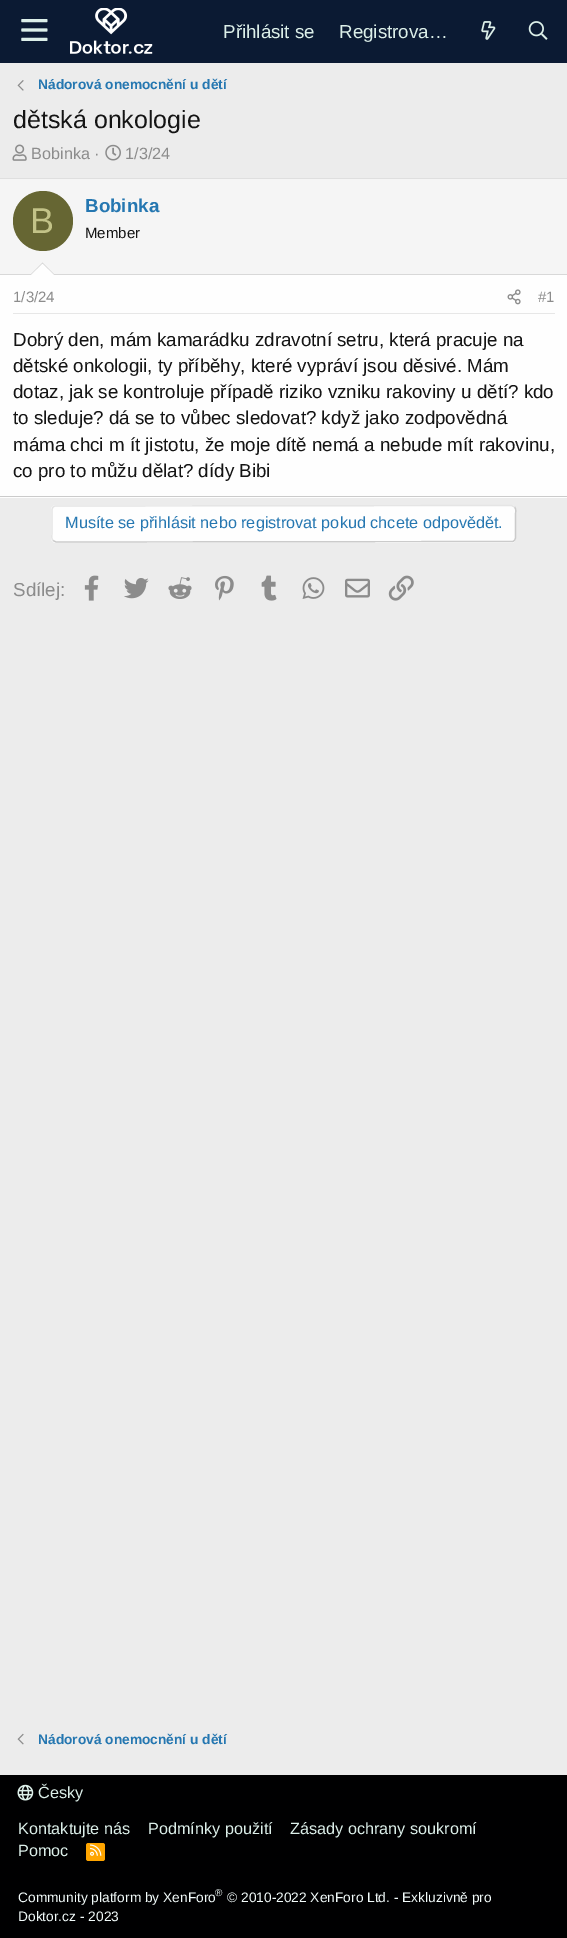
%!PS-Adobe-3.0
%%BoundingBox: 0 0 567 1938
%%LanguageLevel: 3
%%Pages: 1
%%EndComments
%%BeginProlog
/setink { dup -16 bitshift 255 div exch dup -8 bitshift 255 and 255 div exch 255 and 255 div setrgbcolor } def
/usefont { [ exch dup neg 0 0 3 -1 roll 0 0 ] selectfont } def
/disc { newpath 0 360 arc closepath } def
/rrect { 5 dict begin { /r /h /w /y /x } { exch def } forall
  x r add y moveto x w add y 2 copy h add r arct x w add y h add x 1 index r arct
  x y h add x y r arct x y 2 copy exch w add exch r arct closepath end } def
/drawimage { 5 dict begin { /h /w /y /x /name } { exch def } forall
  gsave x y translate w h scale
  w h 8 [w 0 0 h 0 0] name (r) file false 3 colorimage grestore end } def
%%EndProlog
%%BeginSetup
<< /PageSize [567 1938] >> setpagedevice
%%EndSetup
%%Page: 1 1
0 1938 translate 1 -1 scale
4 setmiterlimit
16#ECECEC setink
0 0 567 1938 rectfill
16#0B1A33 setink
0 0 567 63 rectfill
(img1.raw) 21 19 27 22 drawimage
(img2.raw) 70 8 83 46 drawimage
/LiberationSans-Regular 18.75 usefont
16#DCEFE9 setink
223 38 moveto (Přihlásit se) show
339 38 moveto (Registrova…) show
(img3.raw) 481 21 15 19 drawimage
(img4.raw) 528 21 20 19 drawimage
(img5.raw) 17 80 7 11 drawimage
/LiberationSans-Bold 13.75 usefont
16#2577B1 setink
38 89 moveto (Nádorová onemocnění u dětí) show
/LiberationSans-Regular 25 usefont
16#141414 setink
13 128 moveto (dětská onkologie) show
(img6.raw) 12 144 15 17 drawimage
/LiberationSans-Regular 16.25 usefont
16#8C8C8C setink
31 159 moveto (Bobinka ·) show
(img7.raw) 105 144 16 17 drawimage
125 159 moveto (1/3/24) show
[
    [0 275 567 223 16#FEFEFE]
    [0 178 567 1 16#DFDFDF]
    [0 496 567 1 16#CBCBCB]
    [0 179 567 95 16#F5F5F5]
    [0 274 567 1 16#D8D8D8]
] { aload pop setink rectfill } forall
16#666633 setink
43 221 30 disc fill
/LiberationSans-Regular 36 usefont
16#C3C388 setink
30 233 moveto (B) show
/LiberationSans-Bold 18.75 usefont
16#2577B1 setink
85 212 moveto (Bobinka) show
/LiberationSans-Regular 15 usefont
16#141414 setink
85 238 moveto (Member) show
16#D8D8D8 setink
55 275 moveto 30 275 lineto 42.5 262.5 lineto closepath fill
16#FEFEFE setink
54 275 moveto 31 275 lineto 42.5 264 lineto closepath fill
16#E7E7E7 setink
13 313 542 1 rectfill
16#8C8C8C setink
13 302 moveto (1/3/24) show
(img8.raw) 507 289 14 16 drawimage
538 302 moveto (#1) show
/LiberationSans-Regular 18.75 usefont
16#141414 setink
[
    [(Dobrý den, mám kamarádku zdravotní setru, která pracuje na) 13 346]
    [(dětské onkologii, ty příběhy, které vypráví jsou děsivé. Mám) 13 372]
    [(dotaz, jak se kontroluje případě riziko vzniku rakoviny u dětí? kdo) 13 398]
    [(to sleduje? dá se to vůbec sledovat? když jako zodpovědná) 13 424]
    [(máma chci m ít jistotu, že moje dítě nemá a nebude mít rakovinu,) 13 451]
    [(co pro to můžu dělat? dídy Bibi) 13 477]
] { aload pop moveto show } forall
16#FEFEFE setink
51 505 465 38 5 rrect fill
16#CBCBCB setink
1.2 setlinewidth
514.5 507 moveto 516.5 509 515.5 512 515.5 514.5 curveto 515.5 533 lineto 515.5 536 516.5 540.5 512.5 541.5 curveto 56 542 lineto 53 540.5 lineto stroke
16#E5E5E5 setink
53 540.5 moveto 51 538.5 52 535.5 52 533 curveto 52 514.5 lineto 52 511.5 51 507 55 506 curveto 511.5 505.5 lineto 514.5 507 lineto stroke
/LiberationSans-Regular 16.25 usefont
16#2577B1 setink
65 528 moveto (Musíte se přihlásit nebo registrovat pokud chcete odpovědět.) show
/LiberationSans-Regular 18.75 usefont
16#8C8C8C setink
13 596 moveto (Sdílej:) show
(img9.raw) 84 575 15 26 drawimage
(img10.raw) 124 578 25 21 drawimage
(img11.raw) 168 577 24 22 drawimage
(img12.raw) 215 575 19 26 drawimage
(img13.raw) 261 575 16 26 drawimage
(img14.raw) 302 577 23 22 drawimage
(img15.raw) 345 578 25 20 drawimage
(img16.raw) 388 575 26 26 drawimage
(img17.raw) 17 1733 7 12 drawimage
/LiberationSans-Bold 13.75 usefont
16#2577B1 setink
38 1744 moveto (Nádorová onemocnění u dětí) show
16#000001 setink
0 1775 567 163 rectfill
(img18.raw) 17 1784 17 17 drawimage
/LiberationSans-Regular 16.25 usefont
16#DCEFE9 setink
[
    [(Česky) 38 1798]
    [(Kontaktujte nás) 18 1834]
    [(Podmínky použití) 148 1834]
    [(Zásady ochrany soukromí) 290 1834]
    [(Pomoc) 18 1856]
] { aload pop moveto show } forall
16#FFA500 setink
86 1843 19 18 2.5 rrect fill
(img19.raw) 90 1844 12 12 drawimage
/LiberationSans-Regular 13.75 usefont
16#F2FBFA setink
18 1902 moveto (Community platform by XenForo) show
/LiberationSans-Regular 10 usefont
215 1896 moveto (®) show
/LiberationSans-Regular 13.75 usefont
227 1902 moveto (© 2010-2022 XenForo Ltd. - Exkluzivně pro) show
18 1921 moveto (Doktor.cz - 2023) show
showpage
%%EOF
